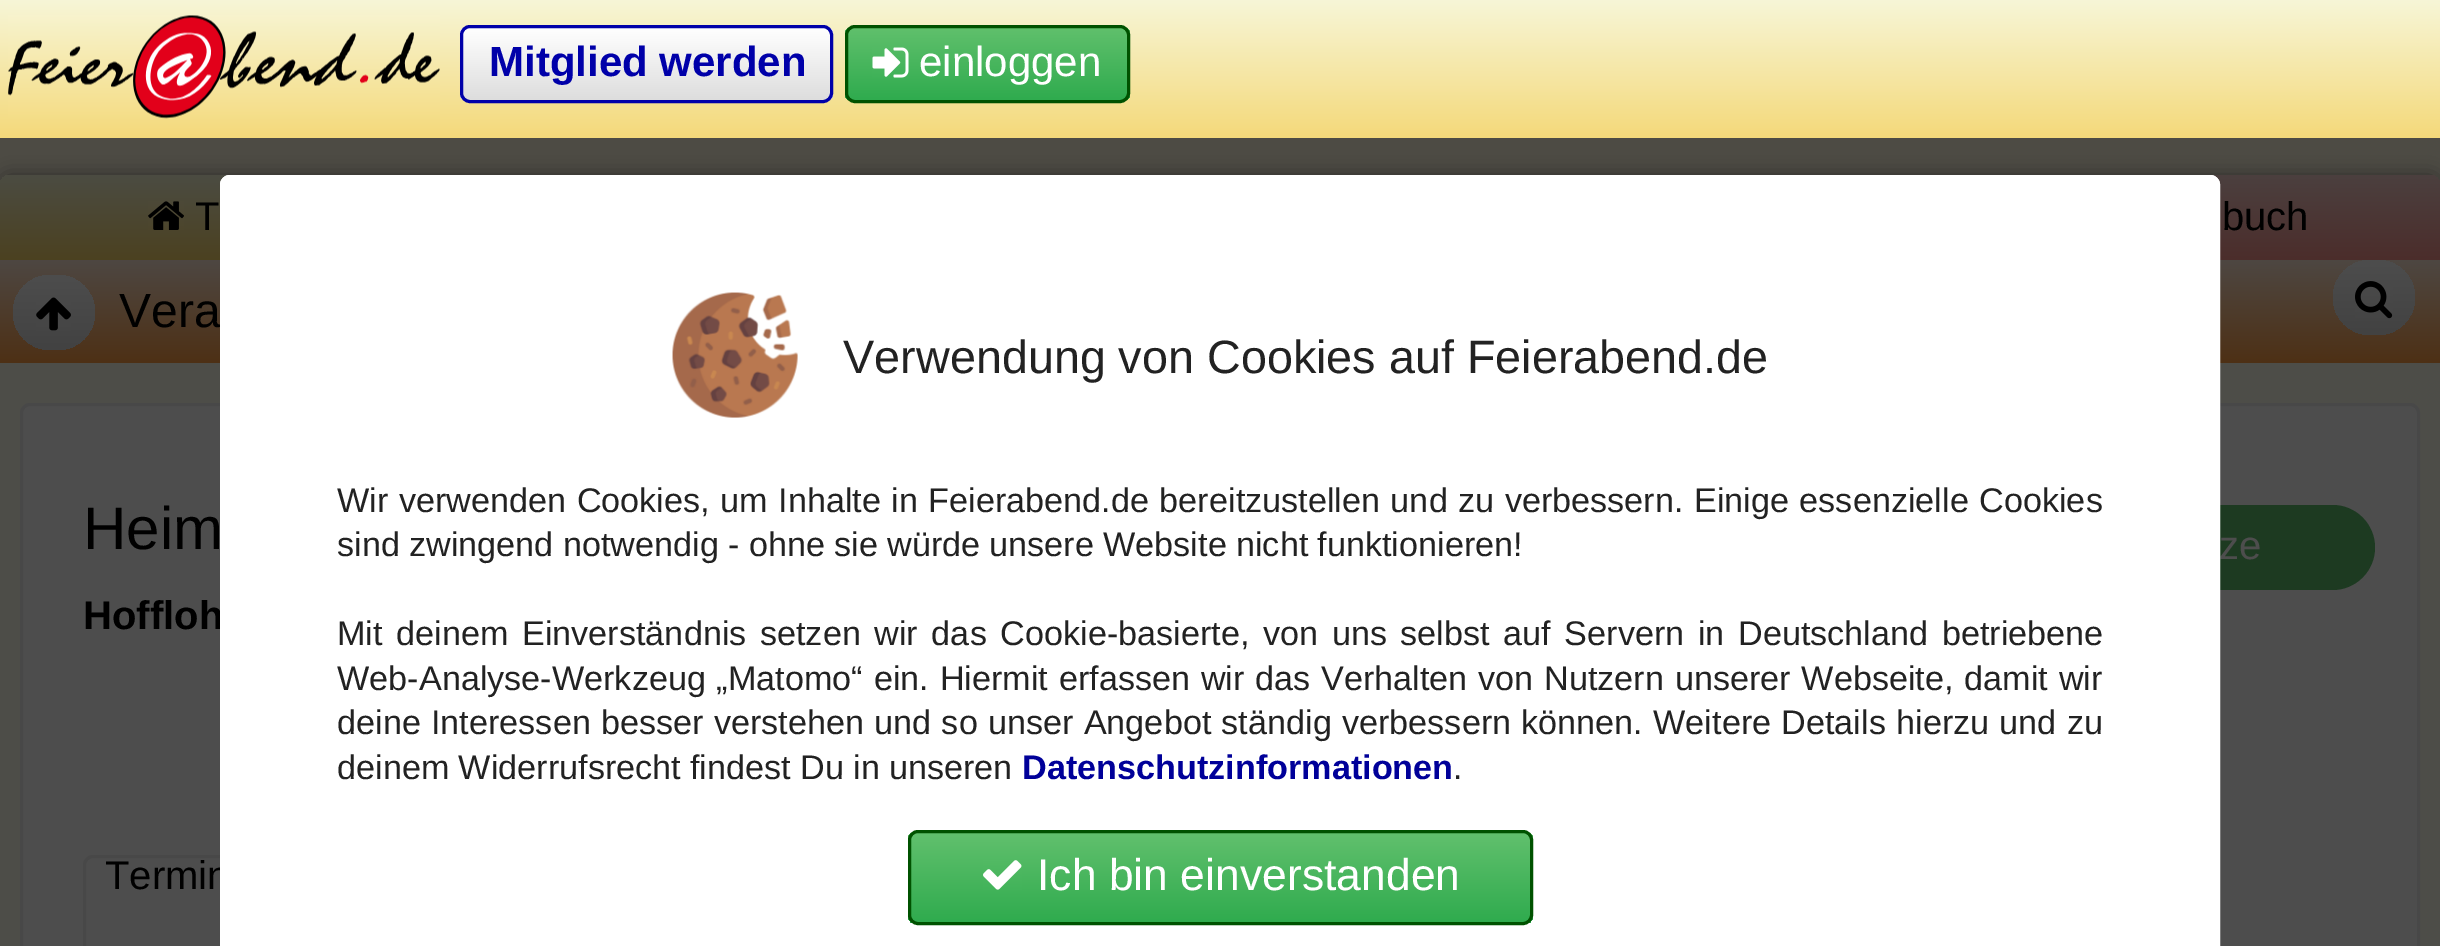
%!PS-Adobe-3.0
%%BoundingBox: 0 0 2440 946
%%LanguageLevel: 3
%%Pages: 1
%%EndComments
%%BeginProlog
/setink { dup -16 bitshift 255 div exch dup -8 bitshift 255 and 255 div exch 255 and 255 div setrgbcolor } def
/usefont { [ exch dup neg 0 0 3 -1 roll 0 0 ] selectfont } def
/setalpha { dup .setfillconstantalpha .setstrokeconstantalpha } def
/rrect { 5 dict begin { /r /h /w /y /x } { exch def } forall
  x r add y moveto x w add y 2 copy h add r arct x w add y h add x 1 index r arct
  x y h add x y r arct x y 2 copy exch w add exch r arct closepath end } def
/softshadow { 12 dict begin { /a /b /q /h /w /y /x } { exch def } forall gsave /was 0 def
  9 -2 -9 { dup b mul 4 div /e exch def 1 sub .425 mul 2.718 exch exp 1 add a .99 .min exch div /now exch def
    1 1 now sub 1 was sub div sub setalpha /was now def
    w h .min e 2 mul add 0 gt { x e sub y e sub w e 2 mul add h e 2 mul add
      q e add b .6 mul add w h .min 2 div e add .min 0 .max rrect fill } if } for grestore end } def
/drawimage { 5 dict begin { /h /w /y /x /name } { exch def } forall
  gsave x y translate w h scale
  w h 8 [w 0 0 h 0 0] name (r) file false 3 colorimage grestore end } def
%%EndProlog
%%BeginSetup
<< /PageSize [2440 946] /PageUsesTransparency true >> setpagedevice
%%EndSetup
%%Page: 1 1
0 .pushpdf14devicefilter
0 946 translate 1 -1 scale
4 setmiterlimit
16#4D4B44 setink
0 0 2440 946 rectfill
gsave 0 0 moveto 2440 0 lineto 2440 138 lineto 0 138 lineto closepath clip newpath
<< /ShadingType 2 /ColorSpace /DeviceRGB /Coords [1220 0 1220 138] /Extend [true true] /Function << /FunctionType 2 /Domain [0 1] /C0 [0.969 0.965 0.843] /C1 [0.957 0.851 0.478] /N 1 >> >> shfill grestore
(img1.raw) 8 15 432 104 drawimage
gsave
460 25 373 78 10 rrect clip newpath
gsave 460 28 moveto 833 28 lineto 833 100 lineto 460 100 lineto closepath clip newpath
<< /ShadingType 2 /ColorSpace /DeviceRGB /Coords [646 27 646 100] /Extend [true true] /Function << /FunctionType 2 /Domain [0 1] /C0 [1 1 1] /C1 [0.867 0.867 0.867] /N 1 >> >> shfill grestore
grestore
16#0000A9 setink
3 setlinewidth
461.5 26.5 370 75 8.5 rrect stroke
/LiberationSans-Bold 42 usefont
489 76 moveto (Mitglied werden) show
gsave
845 25 285 78 10 rrect clip newpath
gsave 845 28 moveto 1130 28 lineto 1130 100 lineto 845 100 lineto closepath clip newpath
<< /ShadingType 2 /ColorSpace /DeviceRGB /Coords [988 27 988 100] /Extend [true true] /Function << /FunctionType 2 /Domain [0 1] /C0 [0.38 0.753 0.427] /C1 [0.184 0.671 0.306] /N 1 >> >> shfill grestore
grestore
16#005200 setink
846.5 26.5 282 75 8.5 rrect stroke
(img2.raw) 872 47 37 31 drawimage
/LiberationSans-Regular 42 usefont
16#FFFFFF setink
919 76 moveto (einloggen) show
16#0F0F0F setink
0 175 2440 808 10 9 0.5 softshadow
16#4D4D48 setink
10 175 moveto 2430 175 lineto 2435.5 175 2440 179.5 2440 185 curveto 2440 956 lineto 0 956 lineto 0 185 lineto 0 179.5 4.5 175 10 175 curveto closepath fill
gsave 10 175 moveto 488 175 lineto 488 260 lineto 0 260 lineto 0 185 lineto 0 179.5 4.5 175 10 175 curveto closepath clip newpath
<< /ShadingType 2 /ColorSpace /DeviceRGB /Coords [244 175 244 260] /Extend [true true] /Function << /FunctionType 2 /Domain [0 1] /C0 [0.298 0.298 0.259] /C1 [0.294 0.255 0.125] /N 1 >> >> shfill grestore
(img3.raw) 148 201 36 29 drawimage
/LiberationSans-Regular 40 usefont
16#000000 setink
195 230 moveto (T) show
gsave 1953 175 moveto 2430 175 lineto 2435.5 175 2440 179.5 2440 185 curveto 2440 260 lineto 1953 260 lineto closepath clip newpath
<< /ShadingType 2 /ColorSpace /DeviceRGB /Coords [2196 175 2196 260] /Extend [true true] /Function << /FunctionType 2 /Domain [0 1] /C0 [0.298 0.251 0.247] /C1 [0.294 0.176 0.169] /N 1 >> >> shfill grestore
2222 230 moveto (buch) show
gsave 0 260 moveto 2440 260 lineto 2440 363 lineto 0 363 lineto closepath clip newpath
<< /ShadingType 2 /ColorSpace /DeviceRGB /Coords [1220 260 1220 363] /Extend [true true] /Function << /FunctionType 2 /Domain [0 1] /C0 [0.302 0.278 0.259] /C1 [0.302 0.188 0.082] /N 1 >> >> shfill grestore
gsave 13 275 82 75 37.5 rrect clip newpath
<< /ShadingType 2 /ColorSpace /DeviceRGB /Coords [54 275 54 350] /Extend [true true] /Function << /FunctionType 2 /Domain [0 1] /C0 [0.302 0.302 0.302] /C1 [0.259 0.259 0.259] /N 1 >> >> shfill grestore
(img4.raw) 36 297 35 34 drawimage
/LiberationSans-Regular 48 usefont
119 327 moveto (Vera) show
gsave 2333 260 82 75 37.5 rrect clip newpath
<< /ShadingType 2 /ColorSpace /DeviceRGB /Coords [2374 260 2374 335] /Extend [true true] /Function << /FunctionType 2 /Domain [0 1] /C0 [0.302 0.302 0.302] /C1 [0.259 0.259 0.259] /N 1 >> >> shfill grestore
(img5.raw) 2355 281 38 38 drawimage
16#4D4D4D setink
21.5 404.5 2397 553 8.5 rrect gsave fill grestore
16#484848 setink
stroke
/LiberationSans-Regular 60 usefont
16#000000 setink
83 549 moveto (Heim) show
/LiberationSans-Bold 40 usefont
83 629 moveto (Hoffloh) show
16#484848 setink
84.5 856.5 1484 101 8.5 rrect stroke
/LiberationSans-Regular 40 usefont
16#000000 setink
105 889 moveto (Termin) show
16#1D3A21 setink
1610 505 765 85 42.5 rrect fill
16#4D4D4D setink
2219 559 moveto (ze) show
16#FFFFFF setink
230 175 moveto 2210 175 lineto 2215.5 175 2220 179.5 2220 185 curveto 2220 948 lineto 220 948 lineto 220 185 lineto 220 179.5 224.5 175 230 175 curveto closepath fill
5 setlinewidth
222.5 177.5 1995 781 7.5 rrect stroke
(img6.raw) 672 292 126 126 drawimage
/LiberationSans-Regular 46.75 usefont
16#222222 setink
843 373 moveto (Verwendung von Cookies auf Feierabend.de) show
/LiberationSans-Regular 34.2 usefont
337 512 moveto 1 0 32 (Wir verwenden Cookies, um Inhalte in Feierabend.de bereitzustellen und zu verbessern. Einige essenzielle Cookies) widthshow
337 556 moveto -0.25 0 32 (sind zwingend notwendig - ohne sie würde unsere Website nicht funktionieren!) widthshow
337 645 moveto 4.1 0 32 (Mit deinem Einverständnis setzen wir das Cookie-basierte, von uns selbst auf Servern in Deutschland betriebene) widthshow
337 690 moveto 1.3 0 32 (Web-Analyse-Werkzeug „Matomo“ ein. Hiermit erfassen wir das Verhalten von Nutzern unserer Webseite, damit wir) widthshow
337 734 moveto 0.75 0 32 (deine Interessen besser verstehen und so unser Angebot ständig verbessern können. Weitere Details hierzu und zu) widthshow
337 779 moveto -0.25 0 32 (deinem Widerrufsrecht findest Du in unseren) widthshow
/LiberationSans-Bold 34.2 usefont
16#000099 setink
1022 779 moveto (Datenschutzinformationen) show
/LiberationSans-Regular 34.2 usefont
16#222222 setink
1453 779 moveto (.) show
gsave
908 830 625 95 10 rrect clip newpath
gsave 908 833 moveto 1533 833 lineto 1533 923 lineto 908 923 lineto closepath clip newpath
<< /ShadingType 2 /ColorSpace /DeviceRGB /Coords [1220 833 1220 923] /Extend [true true] /Function << /FunctionType 2 /Domain [0 1] /C0 [0.38 0.753 0.427] /C1 [0.184 0.671 0.306] /N 1 >> >> shfill grestore
grestore
16#005200 setink
3 setlinewidth
909.5 831.5 622 92 8.5 rrect stroke
(img7.raw) 983 860 39 30 drawimage
/LiberationSans-Regular 44.5 usefont
16#FFFFFF setink
1037 890 moveto (Ich bin einverstanden) show
.poppdf14devicefilter showpage
%%EOF
